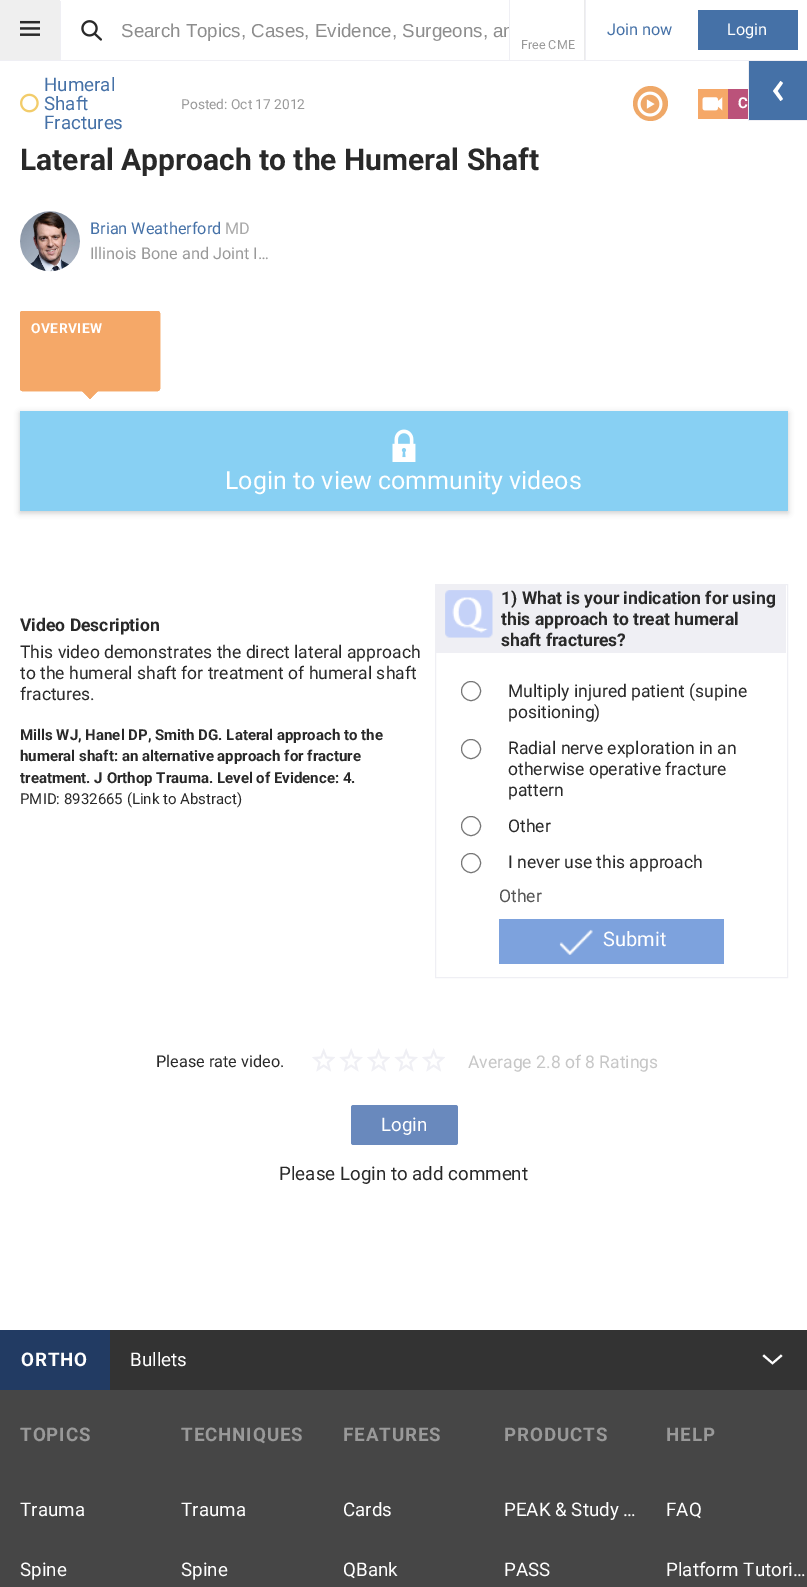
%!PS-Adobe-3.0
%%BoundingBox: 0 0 807 1587
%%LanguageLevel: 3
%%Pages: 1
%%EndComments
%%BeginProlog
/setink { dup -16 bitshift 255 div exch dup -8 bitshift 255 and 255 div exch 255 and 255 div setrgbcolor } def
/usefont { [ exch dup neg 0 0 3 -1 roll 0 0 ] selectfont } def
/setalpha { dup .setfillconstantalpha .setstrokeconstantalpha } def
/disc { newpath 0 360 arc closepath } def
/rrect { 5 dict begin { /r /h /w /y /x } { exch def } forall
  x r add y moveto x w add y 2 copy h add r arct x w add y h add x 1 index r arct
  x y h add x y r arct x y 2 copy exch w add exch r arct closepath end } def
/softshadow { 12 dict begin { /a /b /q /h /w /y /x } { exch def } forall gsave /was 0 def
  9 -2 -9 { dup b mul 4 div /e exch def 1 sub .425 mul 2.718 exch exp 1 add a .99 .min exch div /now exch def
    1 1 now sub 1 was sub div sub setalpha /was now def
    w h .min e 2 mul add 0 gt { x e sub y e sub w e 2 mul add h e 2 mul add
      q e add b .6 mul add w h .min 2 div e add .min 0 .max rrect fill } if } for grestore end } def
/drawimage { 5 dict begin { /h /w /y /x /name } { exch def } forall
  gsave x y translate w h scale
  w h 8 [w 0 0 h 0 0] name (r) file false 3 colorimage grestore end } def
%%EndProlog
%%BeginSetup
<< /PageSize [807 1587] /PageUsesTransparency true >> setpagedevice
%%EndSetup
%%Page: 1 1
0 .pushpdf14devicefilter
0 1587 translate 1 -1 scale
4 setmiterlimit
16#FFFFFF setink
0 0 807 1587 rectfill
16#EFEFF4 setink
0 60 807 1 rectfill
16#EFEFEF setink
0 0 60 60 rectfill
(img1.raw) 20 20 20 16 drawimage
16#EFEFF4 setink
60 1 1 59 rectfill
(img2.raw) 81 20 21 21 drawimage
gsave
121 20 388 21 rectclip
/LiberationSans-Regular 18.75 usefont
16#8D8D8D setink
121 37 moveto (Search Topics, Cases, Evidence, Surgeons, an) show
grestore
585 0 1 60 rectfill
/Roboto-Regular 16.25 usefont
16#4571A7 setink
607 35 moveto (Join now) show
698 10 100 40 rectfill
16#FFFFFF setink
727 35 moveto (Login) show
16#EFEFF4 setink
509 0 1 60 rectfill
16#EBEBEB setink
584 0 1 60 rectfill
/Roboto-Regular 12.5 usefont
16#999999 setink
521 49 moveto (Free CME) show
/Roboto-Regular 18.75 usefont
16#4571A7 setink
44 91 moveto (Humeral) show
(img3.raw) 20 93 19 20 drawimage
44 110 moveto (Shaft) show
44 129 moveto (Fractures) show
/Roboto-Regular 13.75 usefont
16#999999 setink
181 109 moveto (Posted: Oct 17 2012) show
16#EFA868 setink
650.5 103.5 17.5 disc fill
(img4.raw) 637 91 26 26 drawimage
16#F5A868 setink
698 89 30 30 rectfill
(img5.raw) 702 97 21 14 drawimage
16#BB527A setink
728 89 20 30 rectfill
/Roboto-Bold 15 usefont
16#FFFFFF setink
738 108 moveto (C) show
/Roboto-Bold 30 usefont
16#292929 setink
20 170 moveto (Lateral Approach to the Humeral Shaft) show
(img6.raw) 20 211 60 61 drawimage
/Roboto-Regular 16.25 usefont
16#4571A7 setink
90 234 moveto (Brian Weatherford) show
16#A9A9A9 setink
225 234 moveto (MD) show
16#999999 setink
90 259 moveto (Illinois Bone and Joint I…) show
16#F5A868 setink
20.5 311.5 139 79 2 rrect gsave fill grestore
stroke
3 setlinewidth
21.5 312.5 137 77 1 rrect stroke
/Roboto-Bold 13.75 usefont
16#FFFFFF setink
31 333 moveto 0.5 0 (OVERVIEW) ashow
16#F5A868 setink
90 381 moveto 99 390 lineto 90 399 lineto 81 390 lineto closepath fill
97 388 moveto 99 390 lineto 90 399 lineto 88 397 lineto closepath fill
83 388 moveto 92 397 lineto 90 399 lineto 81 390 lineto closepath fill
gsave
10 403 moveto 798 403 lineto 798 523 lineto 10 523 lineto closepath 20 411 moveto 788 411 lineto 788 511 lineto 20 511 lineto closepath eoclip newpath
16#000000 setink
20 413 768 100 0 3 0.2 softshadow
grestore
0.6 setalpha
16#39B1EB setink
20 411 768 100 rectfill
1 setalpha
(img7.raw) 392 429 24 33 drawimage
/Roboto-Regular 25 usefont
16#FFFFFF setink
225 489 moveto (Login to view community videos) show
/Roboto-Bold 17.5 usefont
16#292929 setink
20 631 moveto (Video Description) show
/Roboto-Regular 17.5 usefont
[
    [(This video demonstrates the direct lateral approach) 20 658]
    [(to the humeral shaft for treatment of humeral shaft) 20 679]
    [(fractures.) 20 700]
] { aload pop moveto show } forall
/Roboto-Bold 15 usefont
[
    [(Mills WJ, Hanel DP, Smith DG. Lateral approach to the) 20 740]
    [(humeral shaft: an alternative approach for fracture) 20 761]
    [(treatment. J Orthop Trauma. Level of Evidence: 4.) 20 783]
] { aload pop moveto show } forall
/Roboto-Regular 15 usefont
20 804 moveto (PMID: 8932665 \(Link to Abstract\)) show
16#EFEFF4 setink
1 setlinewidth
435.5 584.5 352 393 rectstroke
436 585 350 68 rectfill
(img8.raw) 445 590 48 48 drawimage
/Roboto-Bold 17.5 usefont
16#292929 setink
[
    [(1\) What is your indication for using) 501 604]
    [(this approach to treat humeral) 501 625]
    [(shaft fractures?) 501 646]
] { aload pop moveto show } forall
16#767676 setink
471 691 9.5 disc stroke
/Roboto-Regular 17.5 usefont
16#292929 setink
508 697 moveto (Multiply injured patient \(supine) show
508 718 moveto (positioning\)) show
16#767676 setink
471 749 9.5 disc stroke
16#292929 setink
[
    [(Radial nerve exploration in an) 508 754]
    [(otherwise operative fracture) 508 775]
    [(pattern) 508 796]
] { aload pop moveto show } forall
16#767676 setink
471 826 9.5 disc stroke
16#292929 setink
508 832 moveto (Other) show
16#767676 setink
471 863 9.5 disc stroke
16#292929 setink
508 868 moveto (I never use this approach) show
16#545454 setink
499 902 moveto (Other) show
16#7DA2DD setink
499 919 225 45 rectfill
(img9.raw) 559 929 34 26 drawimage
/Roboto-Regular 20 usefont
16#FFFFFF setink
603 946 moveto (Submit) show
/Roboto-Regular 16.25 usefont
16#292929 setink
156 1067 moveto (Please rate video.) show
(img10.raw) 312 1048 23 24 drawimage
(img11.raw) 339 1048 24 24 drawimage
(img10.raw) 367 1048 23 24 drawimage
(img11.raw) 394 1048 24 24 drawimage
(img10.raw) 422 1048 23 24 drawimage
/Roboto-Regular 17.5 usefont
16#C6C6C6 setink
468 1068 moveto (Average 2.8 of 8 Ratings) show
16#6989BD setink
351 1105 107 40 2.5 rrect fill
/Roboto-Regular 18.75 usefont
16#FFFFFF setink
381 1131 moveto (Login) show
16#292929 setink
279 1180 moveto (Please Login to add comment) show
[
    [749 61 58 59 16#4571A7]
    [748 120 59 1 16#EFEFF4]
    [748 61 1 60 16#EFEFF4]
] { aload pop setink rectfill } forall
16#FFFFFF setink
783 83 moveto 780.5 81 lineto 773 91 lineto 780.5 101 lineto 783 99 lineto 777.5 91 lineto closepath fill
[
    [0 1390 807 197 16#464646]
    [110 1330 697 60 16#333333]
    [0 1330 110 60 16#223B63]
] { aload pop setink rectfill } forall
/Roboto-Bold 18.75 usefont
16#FFFFFF setink
21 1366 moveto 0.9 0 (ORTHO) ashow
/Roboto-Regular 18.75 usefont
130 1366 moveto (Bullets) show
764 1354.5 moveto 762.5 1356 lineto 772.5 1364.5 lineto 782.5 1356 lineto 781 1354.5 lineto 772.5 1362 lineto closepath fill
/Roboto-Bold 18.75 usefont
16#999999 setink
20 1441 moveto 0.9 0 (TOPICS) ashow
/Roboto-Regular 18.75 usefont
16#FFFFFF setink
20 1516 moveto (Trauma) show
20 1576 moveto (Spine) show
/Roboto-Bold 18.75 usefont
16#999999 setink
181 1441 moveto 0.9 0 (TECHNIQUES) ashow
/Roboto-Regular 18.75 usefont
16#FFFFFF setink
181 1516 moveto (Trauma) show
181 1576 moveto (Spine) show
/Roboto-Bold 18.75 usefont
16#999999 setink
343 1441 moveto 0.9 0 (FEATURES) ashow
/Roboto-Regular 18.75 usefont
16#FFFFFF setink
343 1516 moveto (Cards) show
343 1576 moveto (QBank) show
/Roboto-Bold 18.75 usefont
16#999999 setink
504 1441 moveto 0.9 0 (PRODUCTS) ashow
/Roboto-Regular 18.75 usefont
16#FFFFFF setink
504 1516 moveto (PEAK & Study …) show
504 1576 moveto (PASS) show
/Roboto-Bold 18.75 usefont
16#999999 setink
666 1441 moveto 0.9 0 (HELP) ashow
/Roboto-Regular 18.75 usefont
16#FFFFFF setink
666 1516 moveto (FAQ) show
666 1576 moveto (Platform Tutori…) show
.poppdf14devicefilter showpage
%%EOF
